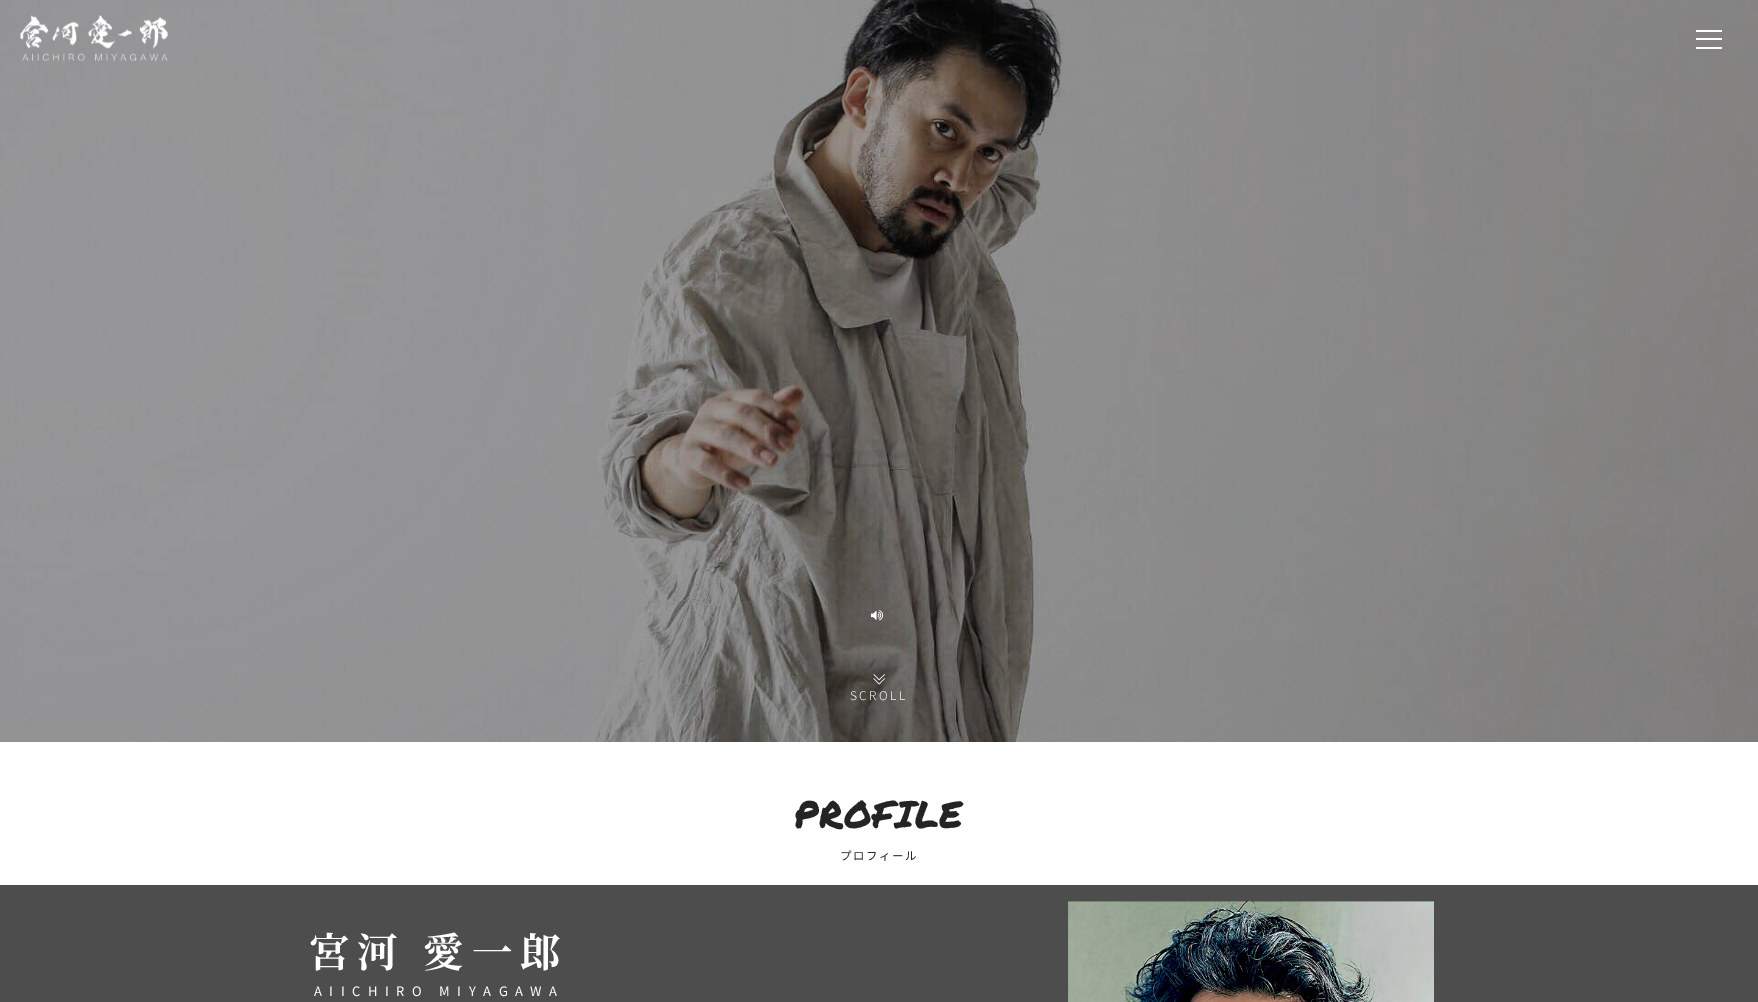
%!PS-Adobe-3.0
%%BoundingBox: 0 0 1758 1002
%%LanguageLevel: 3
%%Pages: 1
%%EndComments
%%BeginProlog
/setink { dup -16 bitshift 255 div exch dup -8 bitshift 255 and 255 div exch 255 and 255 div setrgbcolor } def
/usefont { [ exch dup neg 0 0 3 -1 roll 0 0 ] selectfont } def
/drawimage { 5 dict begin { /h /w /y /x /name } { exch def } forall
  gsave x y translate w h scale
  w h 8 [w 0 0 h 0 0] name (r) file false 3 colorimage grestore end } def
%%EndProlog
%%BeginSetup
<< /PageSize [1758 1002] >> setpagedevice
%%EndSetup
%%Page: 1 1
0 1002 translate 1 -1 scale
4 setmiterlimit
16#FFFFFF setink
0 0 1758 1002 rectfill
(img2.raw) 0 0 1758 742 drawimage
(img1.raw) 20 15 148 46 drawimage
[
    [1696 38 26 2 16#FFFFFF]
    [1696 30 26 2 16#FFFFFF]
    [1696 47 26 2 16#FFFFFF]
] { aload pop setink rectfill } forall
(img3.raw) 871 610 13 11 drawimage
(img4.raw) 873 674 12 11 drawimage
/NotoSansJP-Light 12 usefont
850 700 moveto 2.5 0 (SCROLL) ashow
/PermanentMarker-Regular 37.5 usefont
16#242424 setink
794 828 moveto 0.75 0 (PROFILE) ashow
/NotoSansJP-Regular 11.5 usefont
840 860 moveto 1.5 0 (プロフィール) ashow
16#4D4D4D setink
0 885 1758 117 rectfill
/NotoSerifJP-Bold 40.5 usefont
16#FFFFFF setink
309 967 moveto 7.75 0 (宮河 愛一郎) ashow
/NotoSansJP-Regular 13 usefont
314 996 moveto 7.5 0 (AIICHIRO MIYAGAWA) ashow
(img5.raw) 1068 901 366 101 drawimage
showpage
%%EOF
